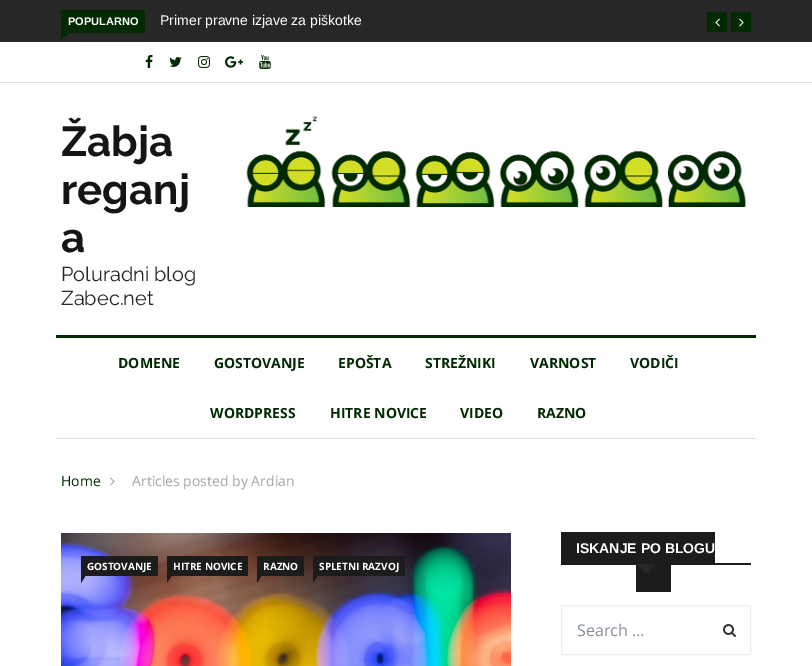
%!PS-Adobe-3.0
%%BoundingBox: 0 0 812 666
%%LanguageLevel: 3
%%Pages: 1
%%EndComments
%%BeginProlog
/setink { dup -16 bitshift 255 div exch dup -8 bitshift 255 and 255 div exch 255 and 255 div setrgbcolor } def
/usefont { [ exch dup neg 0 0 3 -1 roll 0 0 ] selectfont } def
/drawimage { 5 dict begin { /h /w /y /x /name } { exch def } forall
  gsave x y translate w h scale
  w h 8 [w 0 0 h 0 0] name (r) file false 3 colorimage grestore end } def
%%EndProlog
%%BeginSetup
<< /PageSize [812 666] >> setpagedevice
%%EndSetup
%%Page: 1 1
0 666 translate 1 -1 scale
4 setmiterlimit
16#FFFFFF setink
0 0 812 666 rectfill
16#272727 setink
0 0 812 42 rectfill
16#002A00 setink
61 10 84 23 rectfill
/Arimo-Bold 11 usefont
16#FFFFFF setink
68 25 moveto (POPULARNO) show
16#002A00 setink
61 33 moveto 68 33 lineto 61 40 lineto closepath fill
/Arimo-Regular 14 usefont
16#FFFFFF setink
160 25 moveto (Primer pravne izjave za piškotke) show
16#002A00 setink
707 12 20 20 rectfill
(img1.raw) 715 18 5 9 drawimage
731 12 20 20 rectfill
(img2.raw) 739 18 5 9 drawimage
16#DEDEDE setink
0 82 812 1 rectfill
(img3.raw) 145 55 8 13 drawimage
(img4.raw) 169 57 13 10 drawimage
(img5.raw) 198 56 12 12 drawimage
(img6.raw) 225 56 18 12 drawimage
(img7.raw) 259 55 12 14 drawimage
/Raleway-Bold 42 usefont
16#151515 setink
[
    [(Žabja) 61 156]
    [(reganj) 61 204]
    [(a) 61 252]
] { aload pop moveto show } forall
/Raleway-Regular 20 usefont
16#252525 setink
61 281 moveto (Poluradni blog) show
61 305 moveto (Zabec.net) show
(img8.raw) 246 116 500 91 drawimage
16#002A00 setink
56 335 700 3 rectfill
16#DEDEDE setink
56 438 700 1 rectfill
/OpenSans-Bold 14 usefont
16#002A00 setink
[
    [(DOMENE) 118 368]
    [(GOSTOVANJE) 214 368]
    [(EPOŠTA) 338 368]
    [(STREŽNIKI) 425 368]
    [(VARNOST) 530 368]
    [(VODIČI) 630 368]
    [(WORDPRESS) 210 418]
    [(HITRE NOVICE) 330 418]
    [(VIDEO) 460 418]
    [(RAZNO) 537 418]
] { aload pop moveto show } forall
/OpenSans-Regular 14 usefont
61 486 moveto (Home) show
(img9.raw) 110 477 5 9 drawimage
16#A3A3A3 setink
132 486 moveto (Articles posted by Ardian) show
(img10.raw) 61 533 450 133 drawimage
16#1C1C1C setink
81 556 77 20 rectfill
/OpenSans-Bold 10 usefont
16#FFFFFF setink
87 570 moveto (GOSTOVANJE) show
16#1C1C1C setink
81 575 moveto 86 575 lineto 81 583 lineto closepath fill
167 556 81 20 rectfill
16#FFFFFF setink
173 570 moveto (HITRE NOVICE) show
16#1C1C1C setink
167 575 moveto 172 575 lineto 167 583 lineto closepath fill
257 556 47 20 rectfill
16#FFFFFF setink
263 570 moveto (RAZNO) show
16#1C1C1C setink
257 575 moveto 262 575 lineto 257 583 lineto closepath fill
313 556 92 20 rectfill
16#FFFFFF setink
319 570 moveto (SPLETNI RAZVOJ) show
16#1C1C1C setink
313 575 moveto 318 575 lineto 313 583 lineto closepath fill
[
    [561 563 190 2 16#1C1C1C]
    [561 532 154 31 16#1C1C1C]
    [636 565 35 27 16#1C1C1C]
] { aload pop setink rectfill } forall
/Arimo-Bold 14 usefont
16#FFFFFF setink
576 553 moveto (ISKANJE PO BLOGU) show
16#272727 setink
636 564 moveto 656 564 lineto 646 574 lineto closepath fill
16#EEEEEE setink
561.5 605.5 189 49 rectstroke
/OpenSans-Regular 16 usefont
16#868E96 setink
577 636 moveto (Search …) show
(img11.raw) 723 624 13 13 drawimage
showpage
%%EOF
